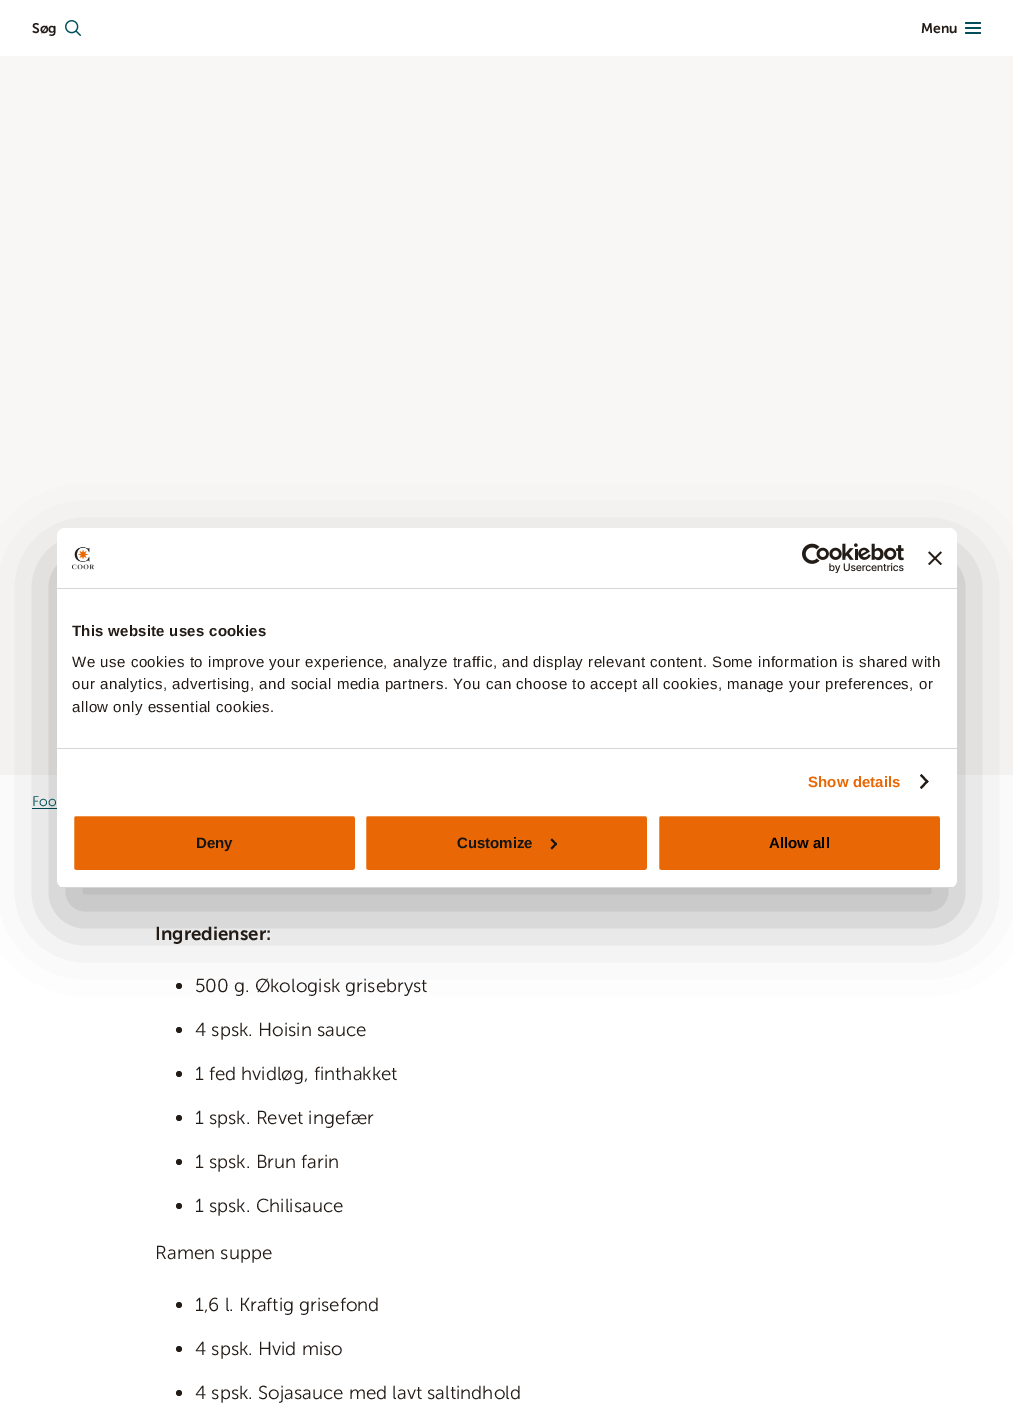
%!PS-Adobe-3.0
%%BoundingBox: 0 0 1013 1416
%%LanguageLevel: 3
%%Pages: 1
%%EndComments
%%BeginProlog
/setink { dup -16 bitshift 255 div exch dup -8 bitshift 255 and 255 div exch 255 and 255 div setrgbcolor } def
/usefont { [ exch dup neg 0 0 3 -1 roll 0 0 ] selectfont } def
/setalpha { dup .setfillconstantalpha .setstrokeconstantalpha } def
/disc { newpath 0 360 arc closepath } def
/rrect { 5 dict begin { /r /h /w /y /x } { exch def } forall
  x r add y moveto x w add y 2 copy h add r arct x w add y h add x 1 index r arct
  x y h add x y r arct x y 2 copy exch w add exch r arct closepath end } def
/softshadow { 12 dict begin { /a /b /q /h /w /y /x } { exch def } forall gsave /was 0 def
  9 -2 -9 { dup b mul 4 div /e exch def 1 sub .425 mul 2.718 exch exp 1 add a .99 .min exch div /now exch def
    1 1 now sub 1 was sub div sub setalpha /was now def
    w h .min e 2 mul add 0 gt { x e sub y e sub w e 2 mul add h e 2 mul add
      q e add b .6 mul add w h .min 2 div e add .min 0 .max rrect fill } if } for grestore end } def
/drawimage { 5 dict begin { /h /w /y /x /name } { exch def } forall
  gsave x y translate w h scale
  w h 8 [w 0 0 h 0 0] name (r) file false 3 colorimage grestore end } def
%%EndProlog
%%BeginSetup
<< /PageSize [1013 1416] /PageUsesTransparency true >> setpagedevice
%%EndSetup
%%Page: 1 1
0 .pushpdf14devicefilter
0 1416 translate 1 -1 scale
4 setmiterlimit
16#FFFFFF setink
0 0 1013 1416 rectfill
/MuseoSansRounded-SemiBold 14 usefont
16#221B16 setink
32 33 moveto (Søg) show
(img1.raw) 65 20 16 16 drawimage
921 33 moveto (Menu) show
16#004E59 setink
965 27 16 2 1 rrect fill
965 22 16 2 1 rrect fill
965 32 16 2 1 rrect fill
16#F8F7F5 setink
0 56 1013 719 rectfill
16#004E59 setink
32 808 25 1 rectfill
16#221B16 setink
179 986 3 disc fill
16#000000 setink
57 560 900 360 8 34 0.3 softshadow
16#FFFFFF setink
57 528 900 360 8 rrect fill
16#D6D6D6 setink
57 588 900 1 rectfill
(img2.raw) 72 547 22 23 drawimage
(img3.raw) 802 543 102 30 drawimage
(img4.raw) 928 551 14 14 drawimage
57 748 900 1 rectfill
/LiberationSans-Bold 15 usefont
16#221B16 setink
72 636 moveto 0.25 0 (This website uses cookies) ashow
/LiberationSans-Regular 15 usefont
72 667 moveto 0.5 0 (We use cookies to improve your experience, analyze traffic, and display relevant content. Some information is shared with) ashow
72 689 moveto 0.5 0 (our analytics, advertising, and social media partners. You can choose to accept all cookies, manage your preferences, or) ashow
72 712 moveto 0.5 0 (allow only essential cookies.) ashow
/LiberationSans-Bold 15 usefont
16#E96704 setink
808 787 moveto 0.1 0 (Show details) ashow
16#221B16 setink
921.5 774 moveto 928.5 781.5 lineto 927 783 lineto 920 775.5 lineto closepath fill
927 780 moveto 928.5 781.5 lineto 921.5 789 lineto 920 787.5 lineto closepath fill
gsave
57 528 900 360 8 rrect clip newpath
16#D6D6D6 setink
57 887 900 1 rectfill
grestore
16#E96704 setink
73 815 283 56 3 rrect gsave fill grestore
16#FFFFFF setink
2 setlinewidth
stroke
16#141414 setink
196 848 moveto (Deny) show
16#E96704 setink
365 815 283 56 3 rrect gsave fill grestore
16#FFFFFF setink
stroke
16#141414 setink
457 848 moveto (Customize) show
552 838.5 moveto 557 844 lineto 556 845.5 lineto 550.5 840 lineto closepath fill
556 842.5 moveto 557 844 lineto 552 849.5 lineto 550.5 848 lineto closepath fill
16#E96704 setink
658 815 283 56 3 rrect gsave fill grestore
16#FFFFFF setink
stroke
16#000000 setink
769 848 moveto (Allow all) show
/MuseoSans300-Light 14 usefont
16#004E59 setink
32 806 moveto (Foo) show
/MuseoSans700-SemiBold 18.75 usefont
16#221B16 setink
155 940 moveto (Ingredienser:) show
/MuseoSans300-Light 18.75 usefont
195 992 moveto (500 g. Økologisk grisebryst) show
179 1030 3 disc fill
195 1036 moveto (4 spsk. Hoisin sauce) show
179 1074 3 disc fill
195 1080 moveto (1 fed hvidløg, finthakket) show
179 1118 3 disc fill
195 1124 moveto (1 spsk. Revet ingefær) show
179 1162 3 disc fill
195 1168 moveto (1 spsk. Brun farin) show
179 1206 3 disc fill
195 1212 moveto (1 spsk. Chilisauce) show
155 1259 moveto (Ramen suppe) show
179 1305 3 disc fill
195 1311 moveto (1,6 l. Kraftig grisefond) show
179 1349 3 disc fill
195 1355 moveto (4 spsk. Hvid miso) show
179 1393 3 disc fill
195 1399 moveto (4 spsk. Sojasauce med lavt saltindhold) show
.poppdf14devicefilter showpage
%%EOF
